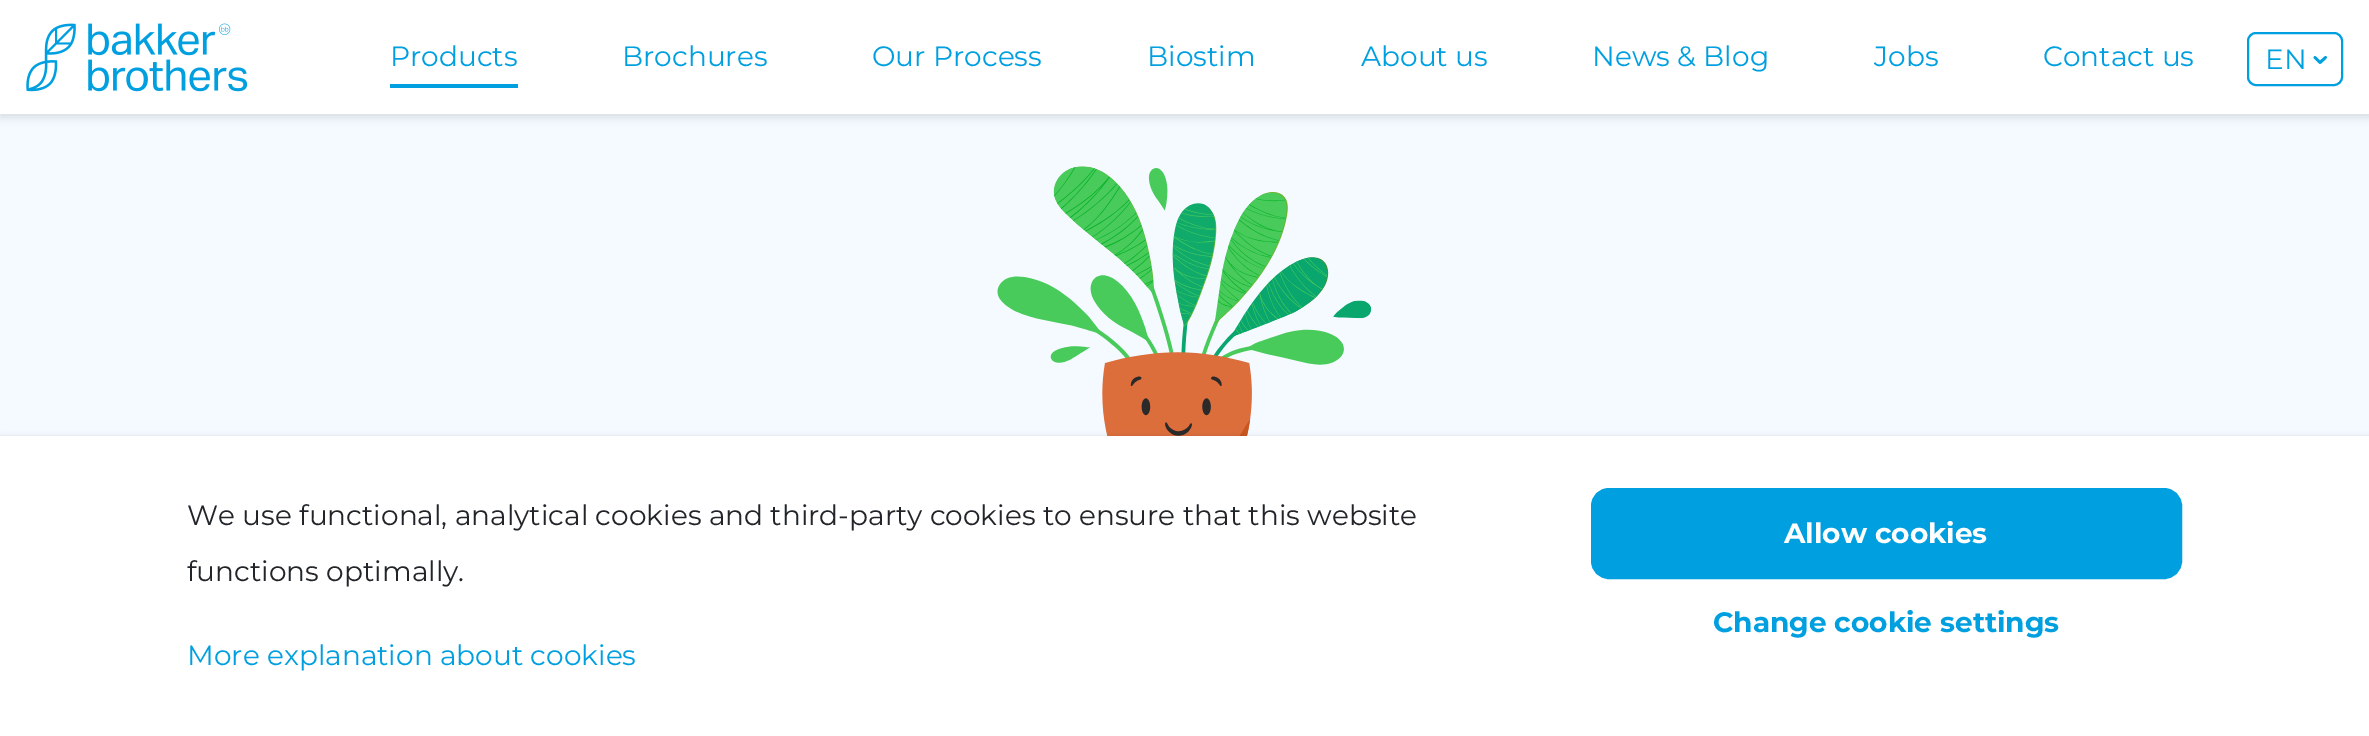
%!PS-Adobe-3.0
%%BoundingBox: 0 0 2369 736
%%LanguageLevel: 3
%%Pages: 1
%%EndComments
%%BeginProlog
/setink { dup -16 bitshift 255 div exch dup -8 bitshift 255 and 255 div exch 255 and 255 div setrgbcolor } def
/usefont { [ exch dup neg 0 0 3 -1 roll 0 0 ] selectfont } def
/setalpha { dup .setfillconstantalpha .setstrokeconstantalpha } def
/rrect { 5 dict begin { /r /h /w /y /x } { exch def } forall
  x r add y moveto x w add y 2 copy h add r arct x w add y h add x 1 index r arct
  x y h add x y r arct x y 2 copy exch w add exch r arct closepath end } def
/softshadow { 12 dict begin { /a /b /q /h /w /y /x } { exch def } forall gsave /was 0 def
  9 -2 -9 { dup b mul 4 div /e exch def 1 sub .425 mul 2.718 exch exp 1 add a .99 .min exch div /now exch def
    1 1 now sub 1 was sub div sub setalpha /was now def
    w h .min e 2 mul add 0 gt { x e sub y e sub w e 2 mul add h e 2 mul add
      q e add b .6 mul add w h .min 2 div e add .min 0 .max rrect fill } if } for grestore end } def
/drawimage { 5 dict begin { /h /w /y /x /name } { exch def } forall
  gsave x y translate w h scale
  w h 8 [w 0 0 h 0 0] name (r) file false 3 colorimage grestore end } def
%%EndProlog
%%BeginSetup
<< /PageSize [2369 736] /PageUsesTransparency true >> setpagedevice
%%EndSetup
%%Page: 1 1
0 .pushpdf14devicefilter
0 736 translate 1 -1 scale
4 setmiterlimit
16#F4FAFF setink
0 0 2369 736 rectfill
16#000000 setink
0 4 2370 113 0 4.5 0.12 softshadow
16#FFFFFF setink
0 0 2369 114 rectfill
(img1.raw) 26 23 222 69 drawimage
16#009FDF setink
390 84 128 4 rectfill
/Montserrat-Regular 28 usefont
[
    [(Products) 390 66]
    [(Brochures) 622 66]
    [(Our Process) 872 66]
    [(Biostim) 1147 66]
    [(About us) 1361 66]
    [(News & Blog) 1592 66]
    [(Jobs) 1874 66]
    [(Contact us) 2043 66]
] { aload pop moveto show } forall
2 setlinewidth
2248 33 94 52 8 rrect stroke
2265 69 moveto (EN) show
gsave
2326.5 55.5 moveto 2326.5 64.5 lineto 2312.5 64.5 lineto 2312.5 55.5 lineto closepath clip newpath
2.8 setlinewidth
1 setlinecap
2325.5 57.5 moveto 2320 62.5 lineto 2320 62.5 moveto 2315 57.5 lineto stroke
grestore
(img2.raw) 997 166 375 270 drawimage
16#000000 setink
0 436 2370 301 0 2.5 0.1 softshadow
16#FFFFFF setink
0 436 2369 300 rectfill
16#212529 setink
187 525 moveto (We use functional, analytical cookies and third-party cookies to ensure that this website) show
187 581 moveto (functions optimally.) show
16#009FDF setink
187 665 moveto (More explanation about cookies) show
1593 490 587 87 16 rrect gsave fill grestore
4 setlinewidth
stroke
/Montserrat-Bold 28 usefont
16#FFFFFF setink
1784 543 moveto (Allow cookies) show
16#009FDF setink
1713 632 moveto (Change cookie settings) show
.poppdf14devicefilter showpage
%%EOF
